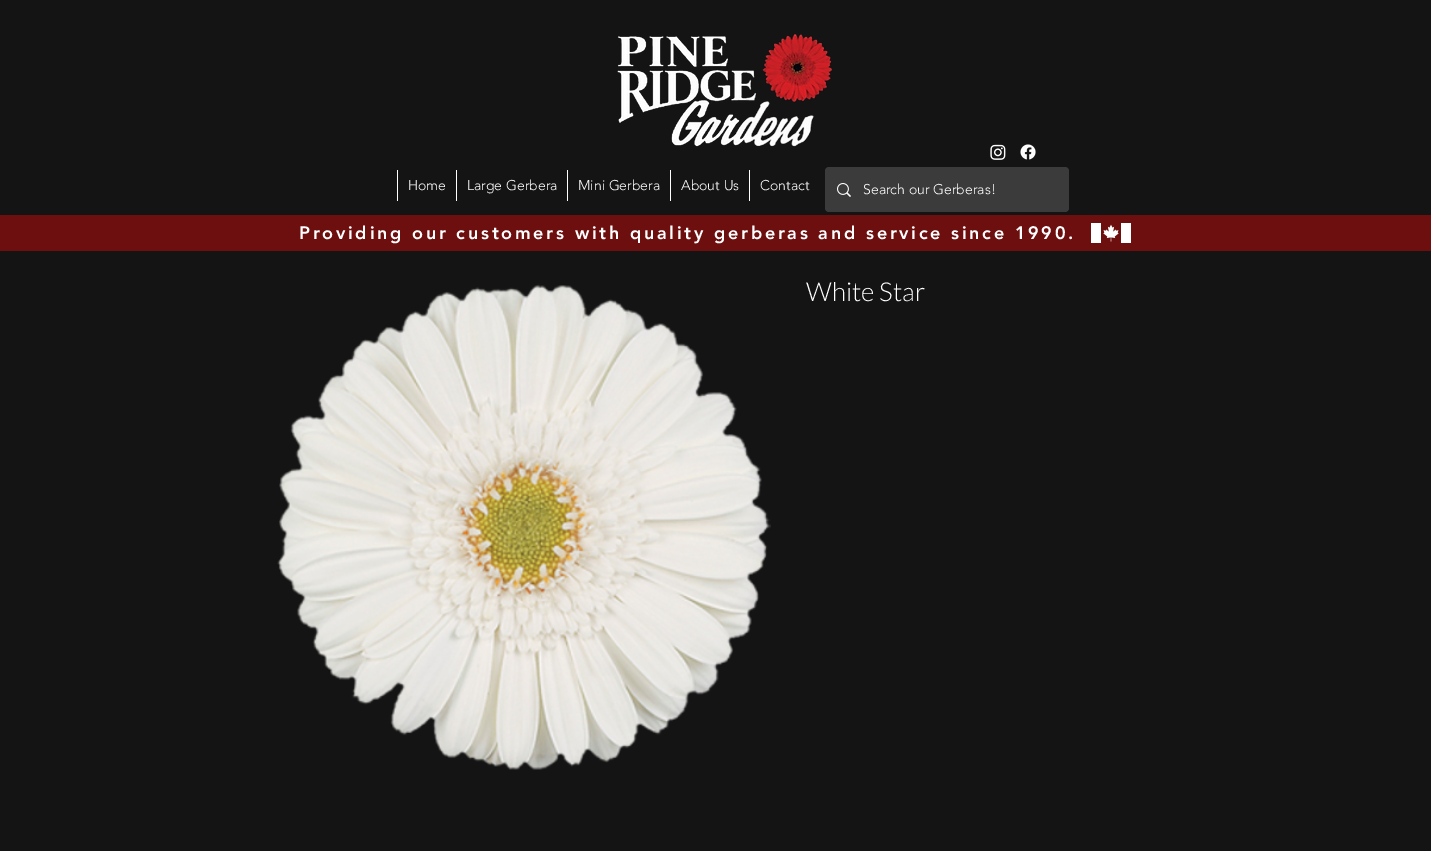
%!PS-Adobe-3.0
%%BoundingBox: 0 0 1431 851
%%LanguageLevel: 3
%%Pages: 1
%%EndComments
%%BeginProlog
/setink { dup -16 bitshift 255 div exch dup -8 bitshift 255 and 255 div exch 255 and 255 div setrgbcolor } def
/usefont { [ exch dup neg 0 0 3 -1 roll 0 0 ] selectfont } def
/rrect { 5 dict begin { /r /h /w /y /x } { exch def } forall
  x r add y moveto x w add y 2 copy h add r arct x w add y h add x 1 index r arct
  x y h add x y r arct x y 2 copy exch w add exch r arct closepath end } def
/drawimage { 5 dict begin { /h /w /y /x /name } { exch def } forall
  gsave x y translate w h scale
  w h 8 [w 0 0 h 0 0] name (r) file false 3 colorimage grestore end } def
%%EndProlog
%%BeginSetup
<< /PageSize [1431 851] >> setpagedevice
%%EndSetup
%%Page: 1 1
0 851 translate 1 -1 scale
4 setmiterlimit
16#141414 setink
0 0 1431 851 rectfill
(img1.raw) 617 34 216 113 drawimage
(img2.raw) 990 144 16 16 drawimage
(img3.raw) 1020 144 16 16 drawimage
16#FFFFFF setink
397 170 1 31 rectfill
/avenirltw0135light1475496-Light 14 usefont
408 190 moveto (Home) show
456 170 1 31 rectfill
467 190 moveto (Large Gerbera) show
567 170 1 31 rectfill
578 190 moveto (Mini Gerbera) show
670 170 1 31 rectfill
681 190 moveto (About Us) show
749 170 1 31 rectfill
760 190 moveto (Contact) show
16#3B3B3B setink
825 167 244 45 4 rrect fill
(img4.raw) 837 183 14 14 drawimage
16#FFFFFF setink
863 194 moveto (Search our Gerberas!) show
16#6D0F0F setink
0 215 1431 36 rectfill
/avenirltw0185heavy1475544-Black 18 usefont
16#FFFFFF setink
299 239 moveto 2.7 0 (Providing our customers with quality gerberas and service since 1990.) ashow
(img5.raw) 1091 223 40 20 drawimage
(img6.raw) 277 283 494 487 drawimage
/Lato-Light 26 usefont
806 301 moveto (White Star) show
showpage
%%EOF
